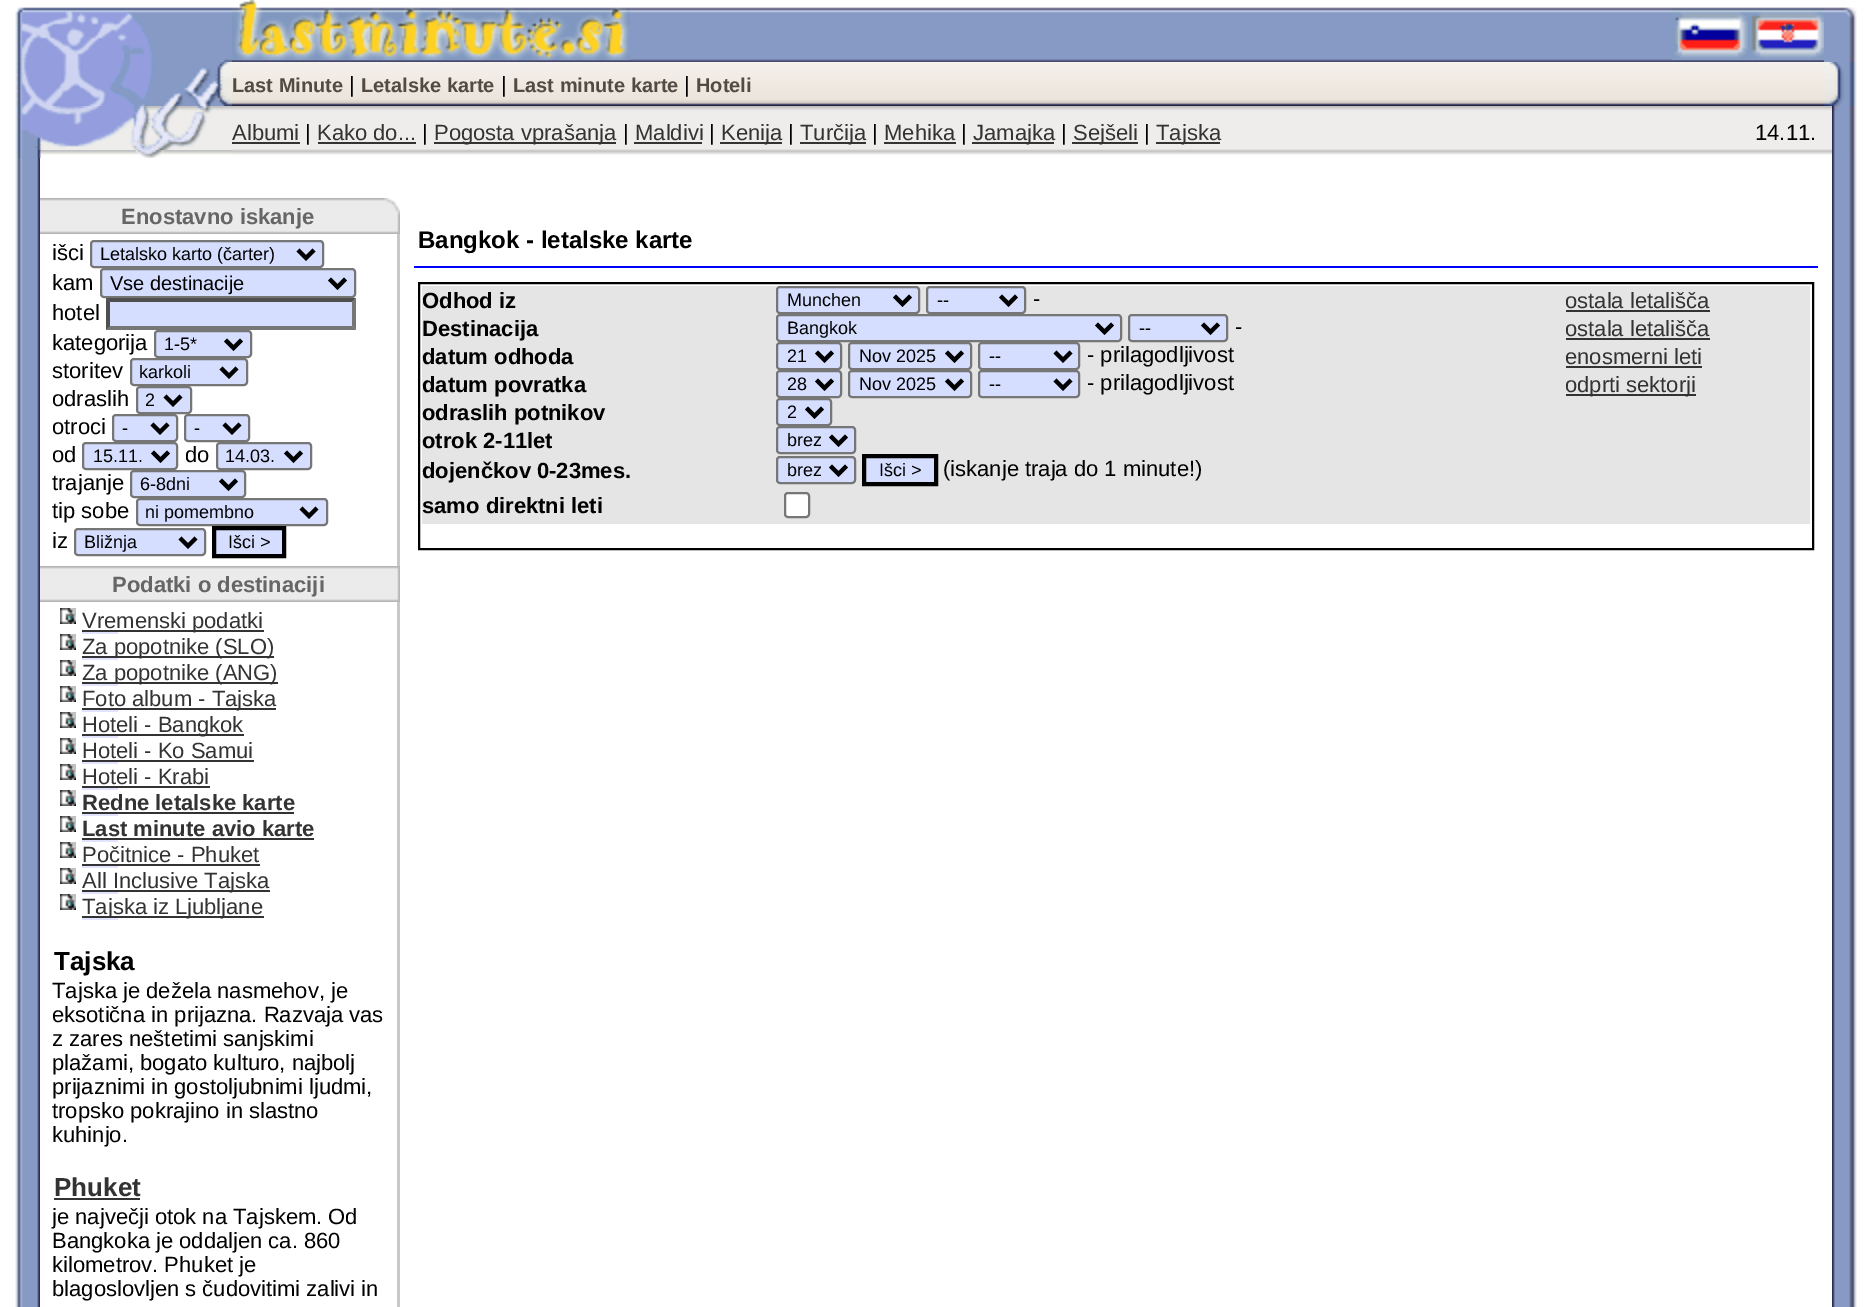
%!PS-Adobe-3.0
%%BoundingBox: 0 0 1871 1307
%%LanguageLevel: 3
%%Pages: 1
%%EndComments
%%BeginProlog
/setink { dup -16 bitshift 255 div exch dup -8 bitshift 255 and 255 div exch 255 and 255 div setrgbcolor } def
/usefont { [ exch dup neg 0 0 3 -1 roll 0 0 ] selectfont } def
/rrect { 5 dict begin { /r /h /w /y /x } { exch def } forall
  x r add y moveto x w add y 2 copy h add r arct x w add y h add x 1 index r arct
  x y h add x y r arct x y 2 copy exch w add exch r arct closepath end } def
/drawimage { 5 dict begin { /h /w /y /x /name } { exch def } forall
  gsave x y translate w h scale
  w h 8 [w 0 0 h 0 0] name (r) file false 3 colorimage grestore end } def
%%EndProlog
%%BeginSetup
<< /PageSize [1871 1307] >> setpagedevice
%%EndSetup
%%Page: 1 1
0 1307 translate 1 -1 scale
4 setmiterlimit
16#FFFFFF setink
0 0 1871 1307 rectfill
(img1.raw) 15 7 217 55 drawimage
(img2.raw) 232 7 828 55 drawimage
(img3.raw) 232 0 398 60 drawimage
(img4.raw) 1060 7 764 55 drawimage
(img5.raw) 1672 8 76 52 drawimage
(img6.raw) 1748 8 76 52 drawimage
(img7.raw) 1824 7 33 55 drawimage
(img8.raw) 15 62 217 44 drawimage
(img9.raw) 232 62 1592 44 drawimage
/LiberationSans-Bold 20 usefont
16#514B43 setink
232 92 moveto (Last Minute) show
/LiberationSans-Regular 22 usefont
16#000000 setink
349 92 moveto (|) show
/LiberationSans-Bold 20 usefont
16#514B43 setink
361 92 moveto (Letalske karte) show
/LiberationSans-Regular 22 usefont
16#000000 setink
501 92 moveto (|) show
/LiberationSans-Bold 20 usefont
16#514B43 setink
513 92 moveto (Last minute karte) show
/LiberationSans-Regular 22 usefont
16#000000 setink
684 92 moveto (|) show
/LiberationSans-Bold 20 usefont
16#514B43 setink
696 92 moveto (Hoteli) show
(img10.raw) 1824 62 33 44 drawimage
(img11.raw) 15 106 217 44 drawimage
(img12.raw) 15 150 217 8 drawimage
(img13.raw) 232 106 1506 49 drawimage
/LiberationSans-Regular 22 usefont
16#333333 setink
232 140 moveto (Albumi) show
232 142 68 2 rectfill
16#000000 setink
305 140 moveto (|) show
16#333333 setink
317 140 moveto (Kako do...) show
318 142 98 2 rectfill
16#000000 setink
422 140 moveto (|) show
16#333333 setink
434 142 182 2 rectfill
434 140 moveto (Pogosta vprašanja) show
16#000000 setink
623 140 moveto (|) show
16#333333 setink
635 140 moveto (Maldivi) show
634 142 68 2 rectfill
16#000000 setink
709 140 moveto (|) show
16#333333 setink
720 142 62 2 rectfill
721 140 moveto (Kenija) show
16#000000 setink
788 140 moveto (|) show
16#333333 setink
800 142 66 2 rectfill
800 140 moveto (Turčija) show
16#000000 setink
872 140 moveto (|) show
16#333333 setink
884 140 moveto (Mehika) show
884 142 72 2 rectfill
16#000000 setink
961 140 moveto (|) show
16#333333 setink
972 142 82 2 rectfill
973 140 moveto (Jamajka) show
16#000000 setink
1061 140 moveto (|) show
16#333333 setink
1072 142 66 2 rectfill
1073 140 moveto (Sejšeli) show
16#000000 setink
1144 140 moveto (|) show
16#333333 setink
1156 142 64 2 rectfill
1156 140 moveto (Tajska) show
(img14.raw) 1738 106 94 49 drawimage
16#000000 setink
1755 140 moveto (14.11.) show
(img15.raw) 1832 106 25 52 drawimage
(img16.raw) 15 158 25 1149 drawimage
(img17.raw) 40 198 12 36 drawimage
(img18.raw) 52 198 332 36 drawimage
/LiberationSans-Bold 22 usefont
16#666666 setink
121 224 moveto (Enostavno iskanje) show
(img19.raw) 384 198 16 36 drawimage
/LiberationSans-Regular 22 usefont
16#000000 setink
52 260 moveto (išci) show
16#D5DEFF setink
91 241 232 26 3 rrect gsave fill grestore
16#767676 setink
2 setlinewidth
stroke
16#000000 setink
4 setlinewidth
298 250 moveto 306 258 lineto 314 250 lineto stroke
/LiberationSans-Regular 18 usefont
100 260 moveto (Letalsko karto \(čarter\)) show
/LiberationSans-Regular 22 usefont
52 290 moveto (kam) show
16#D5DEFF setink
101 269 254 28 3 rrect gsave fill grestore
16#767676 setink
2 setlinewidth
stroke
16#000000 setink
4 setlinewidth
329.5 279 moveto 337.5 287 lineto 345.5 279 lineto stroke
/LiberationSans-Regular 20 usefont
110 290 moveto (Vse destinacije) show
/LiberationSans-Regular 22 usefont
52 320 moveto (hotel) show
16#D5DEFF setink
106 298 250 32 rectfill
16#4F4F4F setink
106 298 moveto 356 298 lineto 352 302 lineto 110 302 lineto closepath fill
16#767676 setink
356 298 moveto 356 330 lineto 352 326 lineto 352 302 lineto closepath fill
356 330 moveto 106 330 lineto 110 326 lineto 352 326 lineto closepath fill
16#4F4F4F setink
106 330 moveto 106 298 lineto 110 302 lineto 110 326 lineto closepath fill
16#000000 setink
52 350 moveto (kategorija) show
16#D5DEFF setink
155 331 96 26 3 rrect gsave fill grestore
16#767676 setink
2 setlinewidth
stroke
16#000000 setink
4 setlinewidth
225.5 340 moveto 233.5 348 lineto 241.5 340 lineto stroke
/LiberationSans-Regular 18 usefont
164 350 moveto (1-5*) show
/LiberationSans-Regular 22 usefont
52 378 moveto (storitev) show
16#D5DEFF setink
131 359 116 26 3 rrect gsave fill grestore
16#767676 setink
2 setlinewidth
stroke
16#000000 setink
4 setlinewidth
221 368 moveto 229 376 lineto 237 368 lineto stroke
/LiberationSans-Regular 18 usefont
139 378 moveto (karkoli) show
/LiberationSans-Regular 22 usefont
52 406 moveto (odraslih) show
16#D5DEFF setink
137 387 54 26 3 rrect gsave fill grestore
16#767676 setink
2 setlinewidth
stroke
16#000000 setink
4 setlinewidth
165 396 moveto 173 404 lineto 181 396 lineto stroke
/LiberationSans-Regular 18 usefont
145 406 moveto (2) show
/LiberationSans-Regular 22 usefont
52 434 moveto (otroci) show
16#D5DEFF setink
113 415 64 26 3 rrect gsave fill grestore
16#767676 setink
2 setlinewidth
stroke
16#000000 setink
4 setlinewidth
152 424 moveto 160 432 lineto 168 424 lineto stroke
/LiberationSans-Regular 18 usefont
122 434 moveto (-) show
16#D5DEFF setink
185 415 64 26 3 rrect gsave fill grestore
16#767676 setink
2 setlinewidth
stroke
16#000000 setink
4 setlinewidth
224 424 moveto 232 432 lineto 240 424 lineto stroke
194 434 moveto (-) show
/LiberationSans-Regular 22 usefont
52 462 moveto (od) show
16#D5DEFF setink
83 443 94 26 3 rrect gsave fill grestore
16#767676 setink
2 setlinewidth
stroke
16#000000 setink
4 setlinewidth
152.5 452 moveto 160.5 460 lineto 168.5 452 lineto stroke
/LiberationSans-Regular 18 usefont
93 462 moveto (15.11.) show
/LiberationSans-Regular 22 usefont
185 462 moveto (do) show
16#D5DEFF setink
217 443 94 26 3 rrect gsave fill grestore
16#767676 setink
2 setlinewidth
stroke
16#000000 setink
4 setlinewidth
285.5 452 moveto 293.5 460 lineto 301.5 452 lineto stroke
/LiberationSans-Regular 18 usefont
225 462 moveto (14.03.) show
/LiberationSans-Regular 22 usefont
52 490 moveto (trajanje) show
16#D5DEFF setink
131 471 114 26 3 rrect gsave fill grestore
16#767676 setink
2 setlinewidth
stroke
16#000000 setink
4 setlinewidth
220.5 480 moveto 228.5 488 lineto 236.5 480 lineto stroke
/LiberationSans-Regular 18 usefont
140 490 moveto (6-8dni) show
/LiberationSans-Regular 22 usefont
52 518 moveto (tip sobe) show
16#D5DEFF setink
137 499 190 26 3 rrect gsave fill grestore
16#767676 setink
2 setlinewidth
stroke
16#000000 setink
4 setlinewidth
301 508 moveto 309 516 lineto 317 508 lineto stroke
/LiberationSans-Regular 18 usefont
145 518 moveto (ni pomembno) show
/LiberationSans-Regular 22 usefont
52 548 moveto (iz) show
16#D5DEFF setink
75 529 130 26 3 rrect gsave fill grestore
16#767676 setink
2 setlinewidth
stroke
16#000000 setink
4 setlinewidth
180 538 moveto 188 546 lineto 196 538 lineto stroke
/LiberationSans-Regular 18 usefont
84 548 moveto (Bližnja) show
16#D5DEFF setink
214 528 moveto 284 528 lineto 284 556 lineto 214 556 lineto closepath gsave fill grestore
16#000000 setink
stroke
228 548 moveto (Išci >) show
16#C8C8C8 setink
397 234 3 332 rectfill
(img17.raw) 40 566 12 36 drawimage
(img18.raw) 52 566 332 36 drawimage
/LiberationSans-Bold 22 usefont
16#666666 setink
112 592 moveto (Podatki o destinaciji) show
(img20.raw) 384 566 16 36 drawimage
(img21.raw) 60 608 16 16 drawimage
16#333333 setink
82 630 182 2 rectfill
/LiberationSans-Regular 22 usefont
82 628 moveto (Vremenski podatki) show
16#E2E3FF setink
82 632 36 2 rectfill
(img21.raw) 60 634 16 16 drawimage
16#333333 setink
82 656 192 2 rectfill
82 654 moveto (Za popotnike \(SLO\)) show
16#E2E3FF setink
82 658 36 2 rectfill
(img21.raw) 60 660 16 16 drawimage
16#333333 setink
82 682 196 2 rectfill
82 680 moveto (Za popotnike \(ANG\)) show
16#E2E3FF setink
82 684 36 2 rectfill
(img21.raw) 60 686 16 16 drawimage
16#333333 setink
82 708 194 2 rectfill
82 706 moveto (Foto album - Tajska) show
16#E2E3FF setink
82 710 36 2 rectfill
(img21.raw) 60 712 16 16 drawimage
16#333333 setink
82 734 162 2 rectfill
82 732 moveto (Hoteli - Bangkok) show
16#E2E3FF setink
82 736 36 2 rectfill
(img21.raw) 60 738 16 16 drawimage
16#333333 setink
82 758 moveto (Hoteli - Ko Samui) show
82 760 172 2 rectfill
16#E2E3FF setink
82 762 36 2 rectfill
(img21.raw) 60 764 16 16 drawimage
16#333333 setink
82 784 moveto (Hoteli - Krabi) show
82 786 128 2 rectfill
16#E2E3FF setink
82 788 36 2 rectfill
(img21.raw) 60 790 16 16 drawimage
/LiberationSans-Bold 22 usefont
16#333333 setink
82 810 moveto (Redne letalske karte) show
82 812 212 2 rectfill
16#E2E3FF setink
82 814 36 2 rectfill
(img21.raw) 60 816 16 16 drawimage
16#333333 setink
82 836 moveto (Last minute avio karte) show
82 838 232 2 rectfill
16#E2E3FF setink
82 840 36 2 rectfill
(img21.raw) 60 842 16 16 drawimage
/LiberationSans-Regular 22 usefont
16#333333 setink
82 862 moveto (Počitnice - Phuket) show
82 864 178 2 rectfill
16#E2E3FF setink
82 866 36 2 rectfill
(img21.raw) 60 868 16 16 drawimage
16#333333 setink
82 890 188 2 rectfill
82 888 moveto (All Inclusive Tajska) show
16#E2E3FF setink
82 892 36 2 rectfill
(img21.raw) 60 894 16 16 drawimage
16#333333 setink
82 916 182 2 rectfill
82 914 moveto (Tajska iz Ljubljane) show
16#E2E3FF setink
82 918 36 2 rectfill
/LiberationSans-Bold 26 usefont
16#000000 setink
54 970 moveto (Tajska) show
/LiberationSans-Regular 22 usefont
[
    [(Tajska je dežela nasmehov, je) 52 998]
    [(eksotična in prijazna. Razvaja vas) 52 1022]
    [(z zares neštetimi sanjskimi) 52 1046]
    [(plažami, bogato kulturo, najbolj) 52 1070]
    [(prijaznimi in gostoljubnimi ljudmi,) 52 1094]
    [(tropsko pokrajino in slastno) 52 1118]
    [(kuhinjo.) 52 1142]
] { aload pop moveto show } forall
/LiberationSans-Bold 26 usefont
16#333333 setink
54 1196 moveto (Phuket) show
54 1198 86 2 rectfill
/LiberationSans-Regular 22 usefont
16#000000 setink
[
    [(je največji otok na Tajskem. Od) 52 1224]
    [(Bangkoka je oddaljen ca. 860) 52 1248]
    [(kilometrov. Phuket je) 52 1272]
    [(blagoslovljen s čudovitimi zalivi in) 52 1296]
] { aload pop moveto show } forall
16#C8C8C8 setink
397 602 3 705 rectfill
/LiberationSans-Bold 24 usefont
16#000000 setink
418 248 moveto (Bangkok - letalske karte) show
16#0000FF setink
414 266 1404 2 rectfill
16#000000 setink
2 setlinewidth
419 283 1394 266 rectstroke
16#E5E5E5 setink
422 286 1388 238 rectfill
/LiberationSans-Bold 22 usefont
16#000000 setink
422 308 moveto (Odhod iz) show
16#D5DEFF setink
777 287 142 26 3 rrect gsave fill grestore
16#767676 setink
stroke
16#000000 setink
4 setlinewidth
894.5 296 moveto 902.5 304 lineto 910.5 296 lineto stroke
/LiberationSans-Regular 18 usefont
787 306 moveto (Munchen) show
16#D5DEFF setink
927 287 98 26 3 rrect gsave fill grestore
16#767676 setink
2 setlinewidth
stroke
16#000000 setink
4 setlinewidth
1000.5 296 moveto 1008.5 304 lineto 1016.5 296 lineto stroke
937 306 moveto (--) show
/LiberationSans-Regular 22 usefont
1033 306 moveto (-) show
16#333333 setink
1565 308 moveto (ostala letališča) show
1566 310 144 2 rectfill
/LiberationSans-Bold 22 usefont
16#000000 setink
422 336 moveto (Destinacija) show
16#D5DEFF setink
777 315 344 26 3 rrect gsave fill grestore
16#767676 setink
2 setlinewidth
stroke
16#000000 setink
4 setlinewidth
1096.5 324 moveto 1104.5 332 lineto 1112.5 324 lineto stroke
/LiberationSans-Regular 18 usefont
787 334 moveto (Bangkok) show
16#D5DEFF setink
1129 315 98 26 3 rrect gsave fill grestore
16#767676 setink
2 setlinewidth
stroke
16#000000 setink
4 setlinewidth
1202.5 324 moveto 1210.5 332 lineto 1218.5 324 lineto stroke
1139 334 moveto (--) show
/LiberationSans-Regular 22 usefont
1235 334 moveto (-) show
16#333333 setink
1565 336 moveto (ostala letališča) show
1566 338 144 2 rectfill
/LiberationSans-Bold 22 usefont
16#000000 setink
422 364 moveto (datum odhoda) show
16#D5DEFF setink
777 343 64 26 3 rrect gsave fill grestore
16#767676 setink
2 setlinewidth
stroke
16#000000 setink
4 setlinewidth
816.5 352 moveto 824.5 360 lineto 832.5 352 lineto stroke
/LiberationSans-Regular 18 usefont
787 362 moveto (21) show
16#D5DEFF setink
849 343 122 26 3 rrect gsave fill grestore
16#767676 setink
2 setlinewidth
stroke
16#000000 setink
4 setlinewidth
946.5 352 moveto 954.5 360 lineto 962.5 352 lineto stroke
859 362 moveto (Nov 2025) show
16#D5DEFF setink
979 343 100 26 3 rrect gsave fill grestore
16#767676 setink
2 setlinewidth
stroke
16#000000 setink
4 setlinewidth
1055 352 moveto 1063 360 lineto 1071 352 lineto stroke
989 362 moveto (--) show
/LiberationSans-Regular 22 usefont
1087 362 moveto (- prilagodljivost) show
16#333333 setink
1565 364 moveto (enosmerni leti) show
1566 366 136 2 rectfill
/LiberationSans-Bold 22 usefont
16#000000 setink
422 392 moveto (datum povratka) show
16#D5DEFF setink
777 371 64 26 3 rrect gsave fill grestore
16#767676 setink
2 setlinewidth
stroke
16#000000 setink
4 setlinewidth
816.5 380 moveto 824.5 388 lineto 832.5 380 lineto stroke
/LiberationSans-Regular 18 usefont
787 390 moveto (28) show
16#D5DEFF setink
849 371 122 26 3 rrect gsave fill grestore
16#767676 setink
2 setlinewidth
stroke
16#000000 setink
4 setlinewidth
946.5 380 moveto 954.5 388 lineto 962.5 380 lineto stroke
859 390 moveto (Nov 2025) show
16#D5DEFF setink
979 371 100 26 3 rrect gsave fill grestore
16#767676 setink
2 setlinewidth
stroke
16#000000 setink
4 setlinewidth
1055 380 moveto 1063 388 lineto 1071 380 lineto stroke
989 390 moveto (--) show
/LiberationSans-Regular 22 usefont
1087 390 moveto (- prilagodljivost) show
16#333333 setink
1566 394 130 2 rectfill
1565 392 moveto (odprti sektorji) show
/LiberationSans-Bold 22 usefont
16#000000 setink
422 420 moveto (odraslih potnikov) show
16#D5DEFF setink
777 399 54 26 3 rrect gsave fill grestore
16#767676 setink
2 setlinewidth
stroke
16#000000 setink
4 setlinewidth
806.5 408 moveto 814.5 416 lineto 822.5 408 lineto stroke
/LiberationSans-Regular 18 usefont
787 418 moveto (2) show
/LiberationSans-Bold 22 usefont
422 448 moveto (otrok 2-11let) show
16#D5DEFF setink
777 427 78 26 3 rrect gsave fill grestore
16#767676 setink
2 setlinewidth
stroke
16#000000 setink
4 setlinewidth
830.5 436 moveto 838.5 444 lineto 846.5 436 lineto stroke
/LiberationSans-Regular 18 usefont
787 446 moveto (brez) show
/LiberationSans-Bold 22 usefont
422 478 moveto (dojenčkov 0-23mes.) show
16#D5DEFF setink
777 457 78 26 3 rrect gsave fill grestore
16#767676 setink
2 setlinewidth
stroke
16#000000 setink
4 setlinewidth
830.5 466 moveto 838.5 474 lineto 846.5 466 lineto stroke
/LiberationSans-Regular 18 usefont
787 476 moveto (brez) show
16#D5DEFF setink
864 456 moveto 936 456 lineto 936 484 lineto 864 484 lineto closepath gsave fill grestore
16#000000 setink
stroke
879 476 moveto (Išci >) show
/LiberationSans-Regular 22 usefont
943 476 moveto (\(iskanje traja do 1 minute!\)) show
/LiberationSans-Bold 22 usefont
422 513 moveto (samo direktni leti) show
16#FFFFFF setink
785 493 24 24 3 rrect gsave fill grestore
16#767676 setink
2 setlinewidth
stroke
(img22.raw) 1832 158 25 1149 drawimage
showpage
%%EOF
